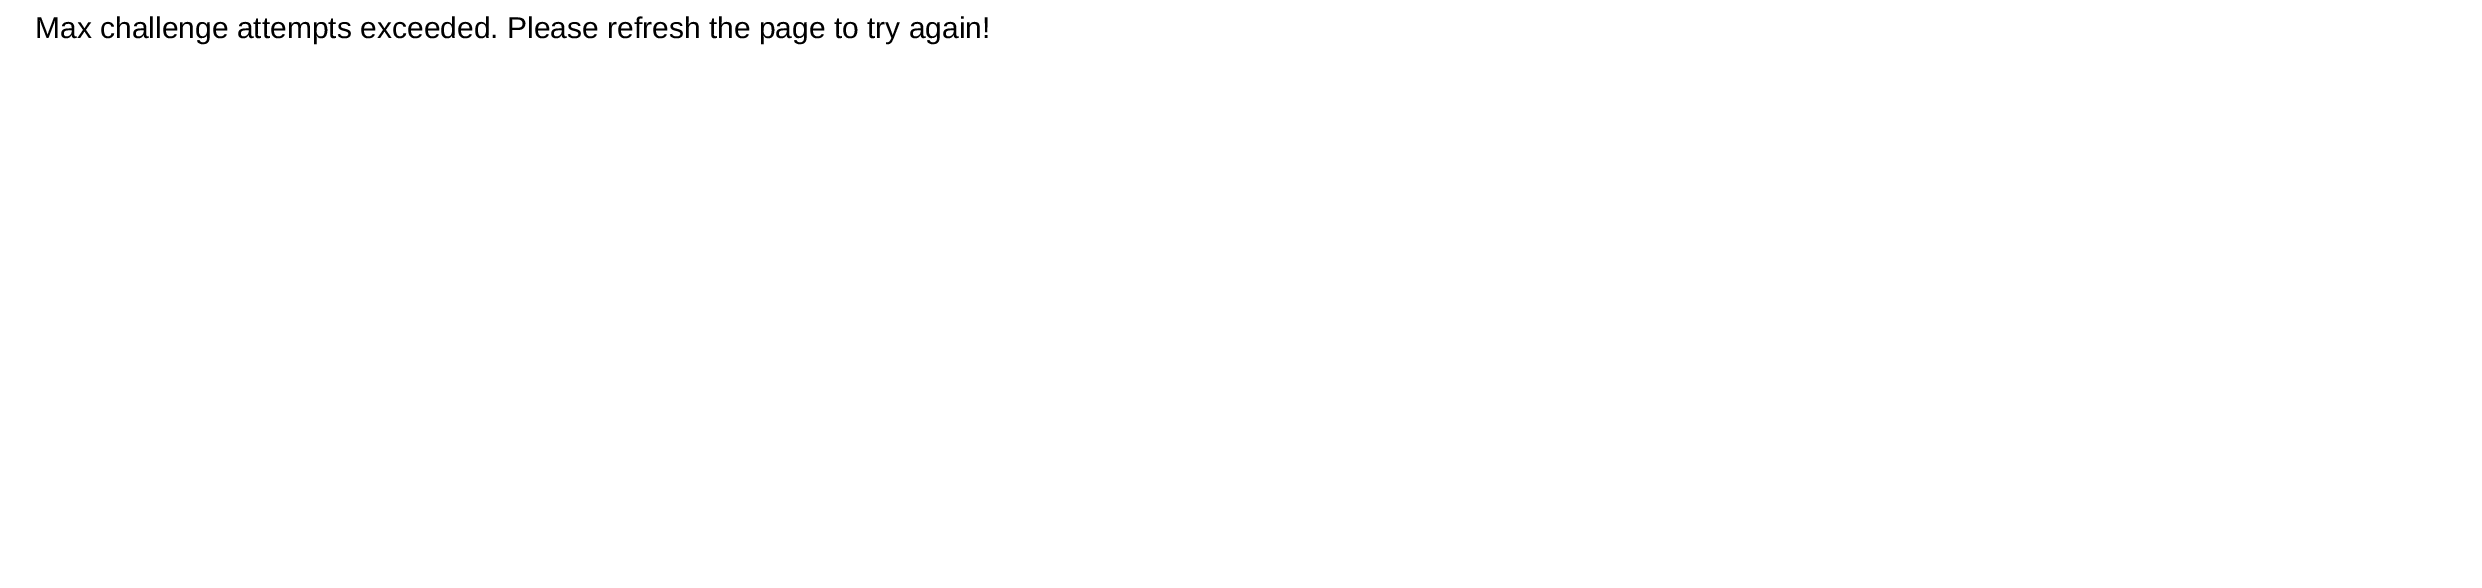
%!PS-Adobe-3.0
%%BoundingBox: 0 0 2482 588
%%LanguageLevel: 3
%%Pages: 1
%%EndComments
%%BeginProlog
/setink { dup -16 bitshift 255 div exch dup -8 bitshift 255 and 255 div exch 255 and 255 div setrgbcolor } def
/usefont { [ exch dup neg 0 0 3 -1 roll 0 0 ] selectfont } def
%%EndProlog
%%BeginSetup
<< /PageSize [2482 588] >> setpagedevice
%%EndSetup
%%Page: 1 1
0 588 translate 1 -1 scale
4 setmiterlimit
16#FFFFFF setink
0 0 2482 588 rectfill
/LiberationSans-Regular 30 usefont
16#000000 setink
35 38 moveto (Max challenge attempts exceeded. Please refresh the page to try again!) show
showpage
%%EOF
